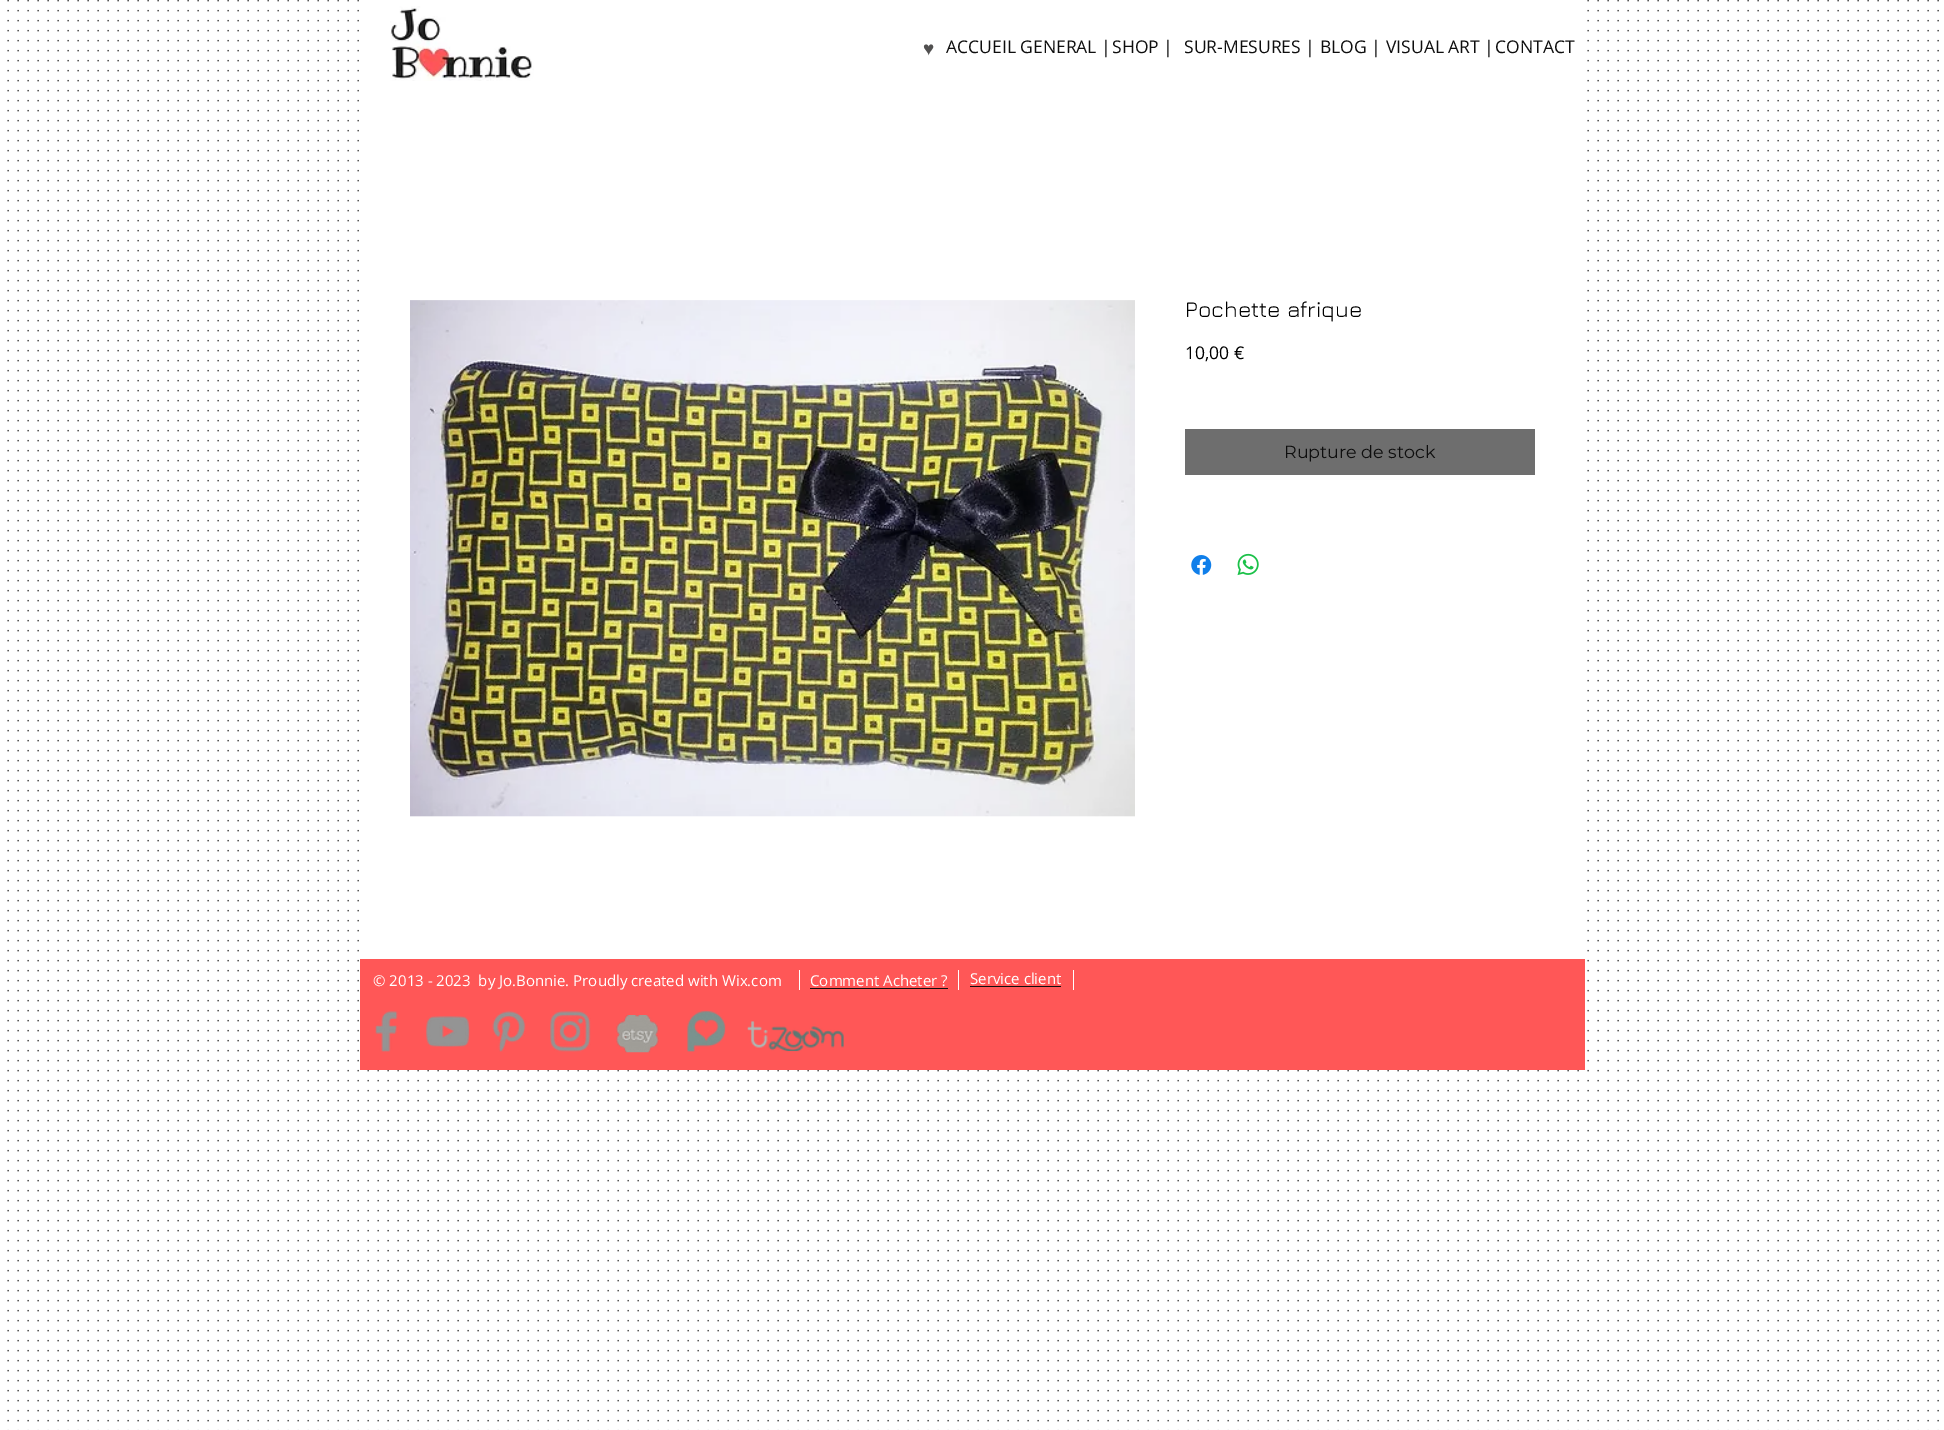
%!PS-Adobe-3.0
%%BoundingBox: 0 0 1944 1430
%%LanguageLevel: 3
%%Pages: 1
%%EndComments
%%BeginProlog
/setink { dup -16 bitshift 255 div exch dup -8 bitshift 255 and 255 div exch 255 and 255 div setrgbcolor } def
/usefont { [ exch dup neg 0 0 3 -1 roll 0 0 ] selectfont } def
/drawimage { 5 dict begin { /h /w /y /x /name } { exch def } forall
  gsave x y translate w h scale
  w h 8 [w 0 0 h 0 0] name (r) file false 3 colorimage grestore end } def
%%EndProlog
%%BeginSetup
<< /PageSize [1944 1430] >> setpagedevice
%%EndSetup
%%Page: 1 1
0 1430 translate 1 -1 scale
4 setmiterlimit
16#FFFFFF setink
0 0 1944 1430 rectfill
(img1.raw) 7 0 1932 1430 drawimage
367 0 1212 952 rectfill
(img2.raw) 390 6 144 75 drawimage
/LiberationSans-Italic 19 usefont
16#515050 setink
923 55 moveto (♥) show
/OpenSans-Regular 17.5 usefont
16#0E0E0E setink
[
    [(ACCUEIL GENERAL |) 946 53]
    [(SHOP |) 1112 53]
    [(SUR-MESURES | BLOG |) 1184 53]
    [(VISUAL ART |) 1386 53]
    [(CONTACT) 1495 53]
] { aload pop moveto show } forall
(img3.raw) 410 300 725 517 drawimage
/Jura-Regular 22.5 usefont
16#000000 setink
1185 317 moveto (Pochette afrique) show
/OpenSans-Regular 17.5 usefont
1185 359 moveto (10,00 €) show
16#6E6E6E setink
1185 429 350 46 rectfill
/Montserrat-Regular 17.5 usefont
16#0E0E0E setink
1284 458 moveto (Rupture de stock) show
(img4.raw) 1191 555 21 20 drawimage
(img5.raw) 1237 553 22 23 drawimage
16#FF5757 setink
360 959 1225 111 rectfill
/OpenSans-Regular 15 usefont
16#FFFFFF setink
373 986 moveto (© 2013 - 2023  by Jo.Bonnie. Proudly created with Wix.com) show
799 970 1 20 rectfill
810 986 moveto (Comment Acheter ?) show
16#0E0E0E setink
810 988 138 1 rectfill
16#FFFFFF setink
958 970 1 20 rectfill
970 984 moveto (Service client) show
16#0E0E0E setink
970 986 91 1 rectfill
16#FFFFFF setink
1073 970 1 20 rectfill
(img6.raw) 375 1011 23 41 drawimage
(img7.raw) 426 1016 44 31 drawimage
(img8.raw) 492 1011 34 41 drawimage
(img9.raw) 550 1011 41 41 drawimage
(img10.raw) 616 1015 43 38 drawimage
(img11.raw) 687 1010 39 42 drawimage
(img12.raw) 747 1021 97 31 drawimage
showpage
%%EOF
